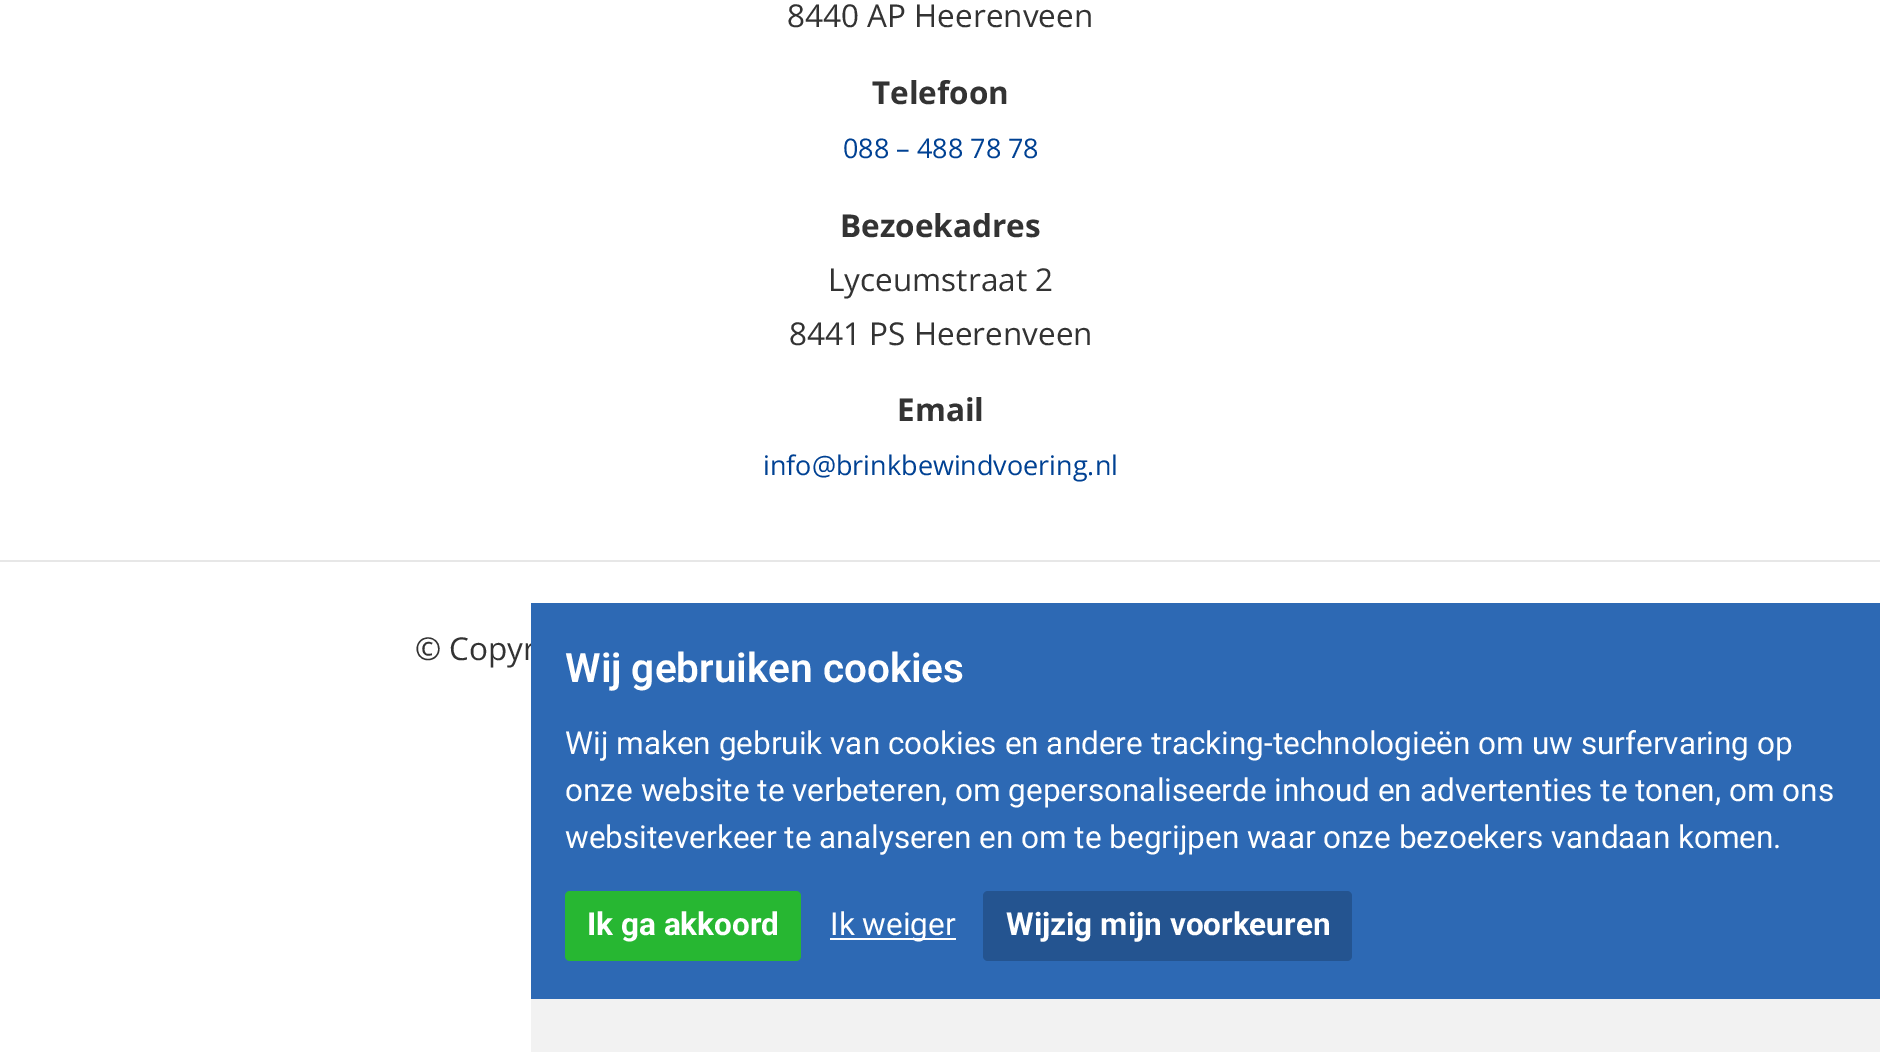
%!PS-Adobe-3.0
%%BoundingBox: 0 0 1880 1052
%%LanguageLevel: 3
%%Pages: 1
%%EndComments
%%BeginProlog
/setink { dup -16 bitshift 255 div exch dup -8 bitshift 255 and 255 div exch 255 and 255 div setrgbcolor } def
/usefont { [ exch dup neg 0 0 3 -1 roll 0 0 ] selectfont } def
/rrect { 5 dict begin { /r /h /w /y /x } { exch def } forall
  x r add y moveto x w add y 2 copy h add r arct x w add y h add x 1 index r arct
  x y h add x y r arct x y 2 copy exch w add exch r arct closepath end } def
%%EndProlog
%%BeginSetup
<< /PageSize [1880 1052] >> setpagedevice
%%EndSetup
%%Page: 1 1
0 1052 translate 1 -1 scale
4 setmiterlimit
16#FFFFFF setink
0 0 1880 1052 rectfill
16#E7E7E7 setink
0 560 1880 2 rectfill
/OpenSans-Regular 31.5 usefont
16#333333 setink
787 27 moveto (8440 AP Heerenveen) show
/OpenSans-Bold 31.5 usefont
872 104 moveto (Telefoon) show
/OpenSans-Regular 27 usefont
16#004193 setink
843 158 moveto (088 – 488 78 78) show
/OpenSans-Bold 31.5 usefont
16#333333 setink
840 237 moveto (Bezoekadres) show
/OpenSans-Regular 31.5 usefont
828 291 moveto (Lyceumstraat 2) show
789 345 moveto (8441 PS Heerenveen) show
/OpenSans-Bold 31.5 usefont
897 421 moveto (Email) show
/OpenSans-Regular 27 usefont
16#004193 setink
763 475 moveto (info@brinkbewindvoering.nl) show
/OpenSans-Regular 31.5 usefont
16#333333 setink
415 660 moveto (© Copyr) show
16#F2F2F2 setink
531 999 1349 53 rectfill
16#2D69B4 setink
531 603 1349 396 rectfill
/Roboto-SemiBold 40.5 usefont
16#FFFFFF setink
565 682 moveto (Wij gebruiken cookies) show
/Roboto-Regular 31.5 usefont
[
    [(Wij maken gebruik van cookies en andere tracking-technologieën om uw surfervaring op) 565 754]
    [(onze website te verbeteren, om gepersonaliseerde inhoud en advertenties te tonen, om ons) 565 801]
    [(websiteverkeer te analyseren en om te begrijpen waar onze bezoekers vandaan komen.) 565 848]
] { aload pop moveto show } forall
16#27B732 setink
565 891 236 70 5 rrect fill
/Roboto-Bold 31.5 usefont
16#FFFFFF setink
587 935 moveto (Ik ga akkoord) show
830 938 126 2 rectfill
/Roboto-Regular 31.5 usefont
830 935 moveto (Ik weiger) show
16#245490 setink
983 891 369 70 5 rrect fill
/Roboto-Bold 31.5 usefont
16#FFFFFF setink
1006 935 moveto (Wijzig mijn voorkeuren) show
showpage
%%EOF
